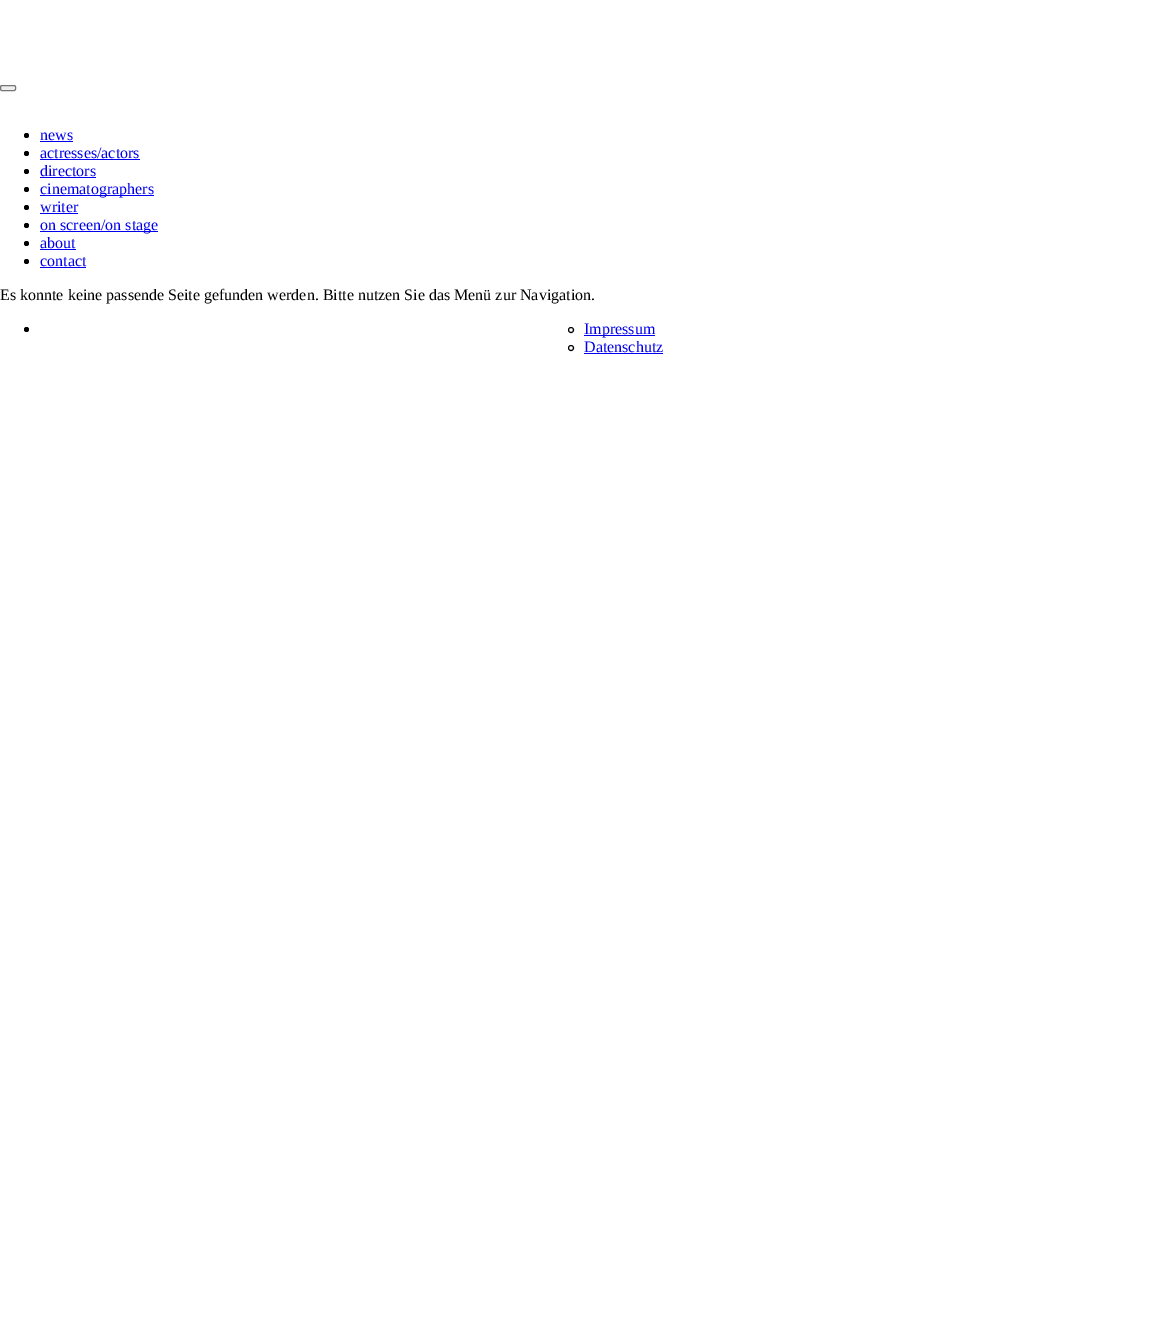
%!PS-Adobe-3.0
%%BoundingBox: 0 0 1167 1321
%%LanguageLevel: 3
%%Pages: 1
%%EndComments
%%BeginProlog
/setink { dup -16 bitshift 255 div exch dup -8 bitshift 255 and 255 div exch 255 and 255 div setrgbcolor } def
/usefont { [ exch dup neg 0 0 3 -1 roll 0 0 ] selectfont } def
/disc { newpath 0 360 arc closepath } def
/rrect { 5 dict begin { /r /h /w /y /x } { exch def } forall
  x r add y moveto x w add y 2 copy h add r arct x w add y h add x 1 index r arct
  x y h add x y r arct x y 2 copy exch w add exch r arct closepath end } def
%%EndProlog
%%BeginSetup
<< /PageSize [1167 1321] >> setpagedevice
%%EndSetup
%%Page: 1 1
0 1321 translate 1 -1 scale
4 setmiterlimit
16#FFFFFF setink
0 0 1167 1321 rectfill
16#EFEFEF setink
0.5 85.5 15 5 1.5 rrect gsave fill grestore
16#767676 setink
stroke
16#000000 setink
26.5 135.5 2.5 disc fill
/LiberationSerif-Regular 16 usefont
16#0000EE setink
40 140 moveto (news) show
40 141 33 1 rectfill
16#000000 setink
26.5 153.5 2.5 disc fill
16#0000EE setink
40 158 moveto (actresses/actors) show
40 159 100 1 rectfill
16#000000 setink
26.5 171.5 2.5 disc fill
16#0000EE setink
40 176 moveto (directors) show
40 177 56 1 rectfill
16#000000 setink
26.5 189.5 2.5 disc fill
16#0000EE setink
40 195 114 1 rectfill
40 194 moveto (cinematographers) show
16#000000 setink
26.5 207.5 2.5 disc fill
16#0000EE setink
40 212 moveto (writer) show
40 213 38 1 rectfill
16#000000 setink
26.5 225.5 2.5 disc fill
16#0000EE setink
40 231 118 1 rectfill
40 230 moveto (on screen/on stage) show
16#000000 setink
26.5 243.5 2.5 disc fill
16#0000EE setink
40 248 moveto (about) show
40 249 36 1 rectfill
16#000000 setink
26.5 261.5 2.5 disc fill
16#0000EE setink
40 266 moveto (contact) show
40 267 46 1 rectfill
16#000000 setink
0 300 moveto (Es konnte keine passende Seite gefunden werden. Bitte nutzen Sie das Menü zur Navigation.) show
26.5 329.5 2.5 disc fill
571 330 2.5 disc stroke
16#0000EE setink
584 335 71 1 rectfill
584 334 moveto (Impressum) show
16#000000 setink
571 348 2.5 disc stroke
16#0000EE setink
584 352 moveto (Datenschutz) show
584 353 79 1 rectfill
showpage
%%EOF
